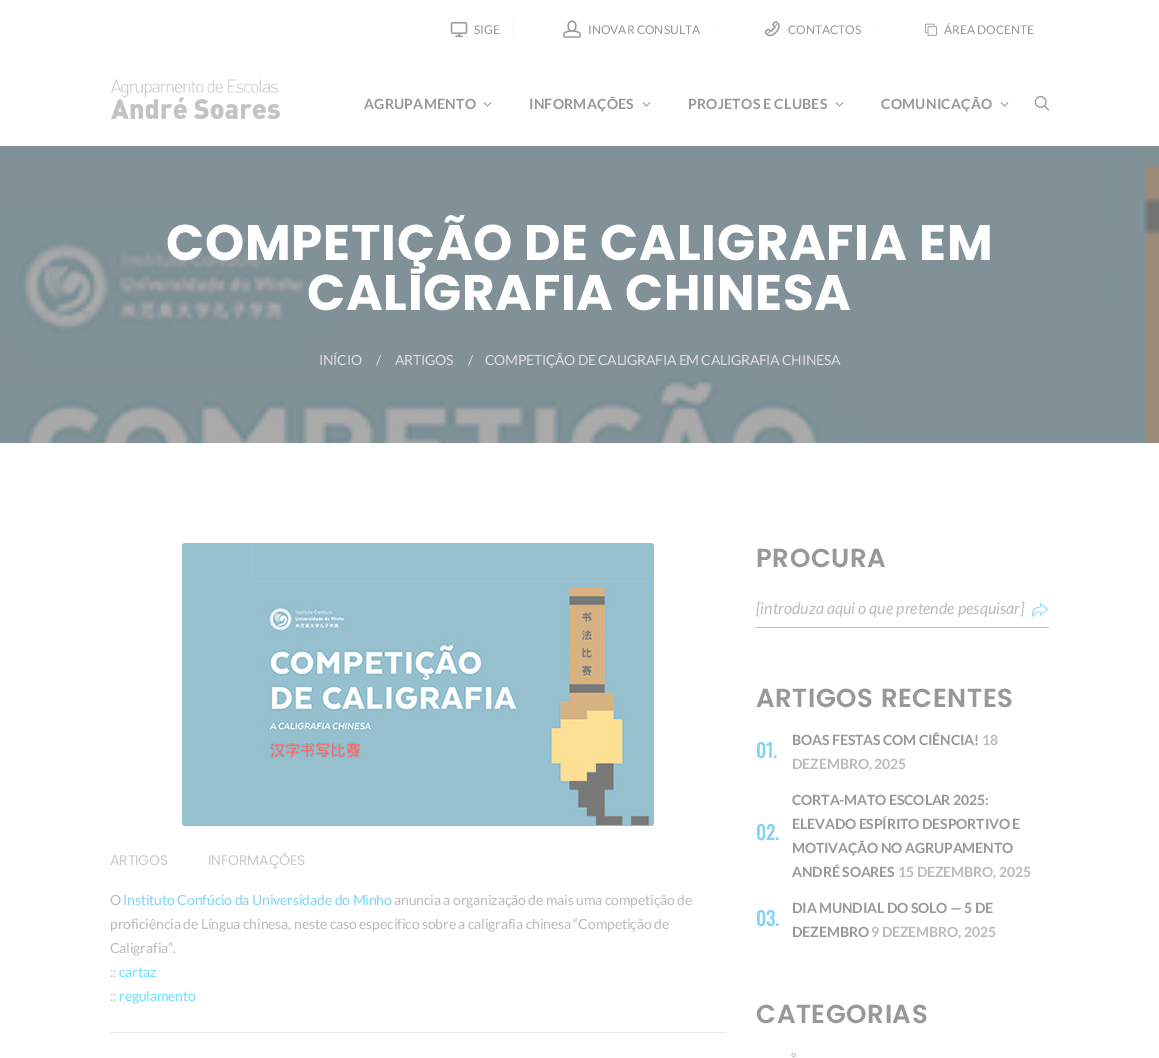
%!PS-Adobe-3.0
%%BoundingBox: 0 0 1159 1058
%%LanguageLevel: 3
%%Pages: 1
%%EndComments
%%BeginProlog
/setink { dup -16 bitshift 255 div exch dup -8 bitshift 255 and 255 div exch 255 and 255 div setrgbcolor } def
/usefont { [ exch dup neg 0 0 3 -1 roll 0 0 ] selectfont } def
/drawimage { 5 dict begin { /h /w /y /x /name } { exch def } forall
  gsave x y translate w h scale
  w h 8 [w 0 0 h 0 0] name (r) file false 3 colorimage grestore end } def
%%EndProlog
%%BeginSetup
<< /PageSize [1159 1058] >> setpagedevice
%%EndSetup
%%Page: 1 1
0 1058 translate 1 -1 scale
4 setmiterlimit
16#FFFFFF setink
0 0 1159 1058 rectfill
(img1.raw) 450 22 18 15 drawimage
/Lato-Regular 12 usefont
16#989898 setink
474 34 moveto (SIGE) show
16#F9F9F9 setink
512 20 1 16 rectfill
(img2.raw) 563 20 18 18 drawimage
16#989898 setink
588 34 moveto (INOVAR CONSULTA) show
16#F9F9F9 setink
713 20 1 16 rectfill
(img3.raw) 764 21 16 16 drawimage
16#989898 setink
788 34 moveto (CONTACTOS) show
16#F9F9F9 setink
874 24 1 12 rectfill
(img4.raw) 925 23 12 13 drawimage
16#989898 setink
944 34 moveto (ÁREA DOCENTE) show
(img5.raw) 111 79 169 40 drawimage
/Lato-Bold 14 usefont
364 109 moveto 0.25 0 (AGRUPAMENTO) ashow
(img6.raw) 483 102 9 5 drawimage
529 109 moveto 0.25 0 (INFORMAÇÕES) ashow
(img6.raw) 642 102 9 5 drawimage
688 109 moveto 0.25 0 (PROJETOS E CLUBES) ashow
(img6.raw) 835 102 9 5 drawimage
881 109 moveto 0.25 0 (COMUNICAÇÃO) ashow
(img6.raw) 1000 102 9 5 drawimage
(img7.raw) 1034 96 15 15 drawimage
(img8.raw) 0 146 1159 297 drawimage
/Poppins-Bold 50 usefont
16#FFFFFF setink
166 260 moveto 0.7 0 (COMPETIÇÃO DE CALIGRAFIA EM) ashow
307 310 moveto 0.7 0 (CALIGRAFIA CHINESA) ashow
/Lato-Regular 14 usefont
16#DFDFDF setink
319 365 moveto -0.3 0 (INÍCIO) ashow
376 365 moveto -0.3 0 (/) ashow
395 365 moveto -0.3 0 (ARTIGOS) ashow
468 365 moveto -0.3 0 (/) ashow
485 365 moveto -0.3 0 (COMPETIÇÃO DE CALIGRAFIA EM CALIGRAFIA CHINESA) ashow
(img9.raw) 182 543 472 283 drawimage
/Poppins-Regular 14 usefont
16#C9C9C9 setink
110 865 moveto -0.12 0 (ARTIGOS) ashow
208 865 moveto -0.12 0 (INFORMAÇÕES) ashow
/Lato-Regular 14 usefont
16#BBBBBB setink
110 905 moveto -0.12 0 (O) ashow
16#81D3F5 setink
123 905 moveto -0.12 0 (Instituto Confúcio da Universidade do Minho) ashow
16#BBBBBB setink
394 905 moveto -0.12 0 (anuncia a organização de mais uma competição de) ashow
110 929 moveto -0.12 0 (proficiência de Língua chinesa, neste caso específico sobre a caligrafia chinesa “Competição de) ashow
110 953 moveto -0.12 0 (Caligrafia”.) ashow
110 977 moveto -0.12 0 (::) ashow
16#69E1FF setink
119 977 moveto -0.12 0 (cartaz) ashow
16#BBBBBB setink
110 1001 moveto -0.12 0 (::) ashow
16#69E1FF setink
119 1001 moveto -0.12 0 (regulamento) ashow
16#EBEBEB setink
110 1032 616 1 rectfill
/Poppins-SemiBold 26 usefont
16#989898 setink
756 567 moveto 0.6 0 (PROCURA) ashow
16#BBBBBB setink
756 627 293 1 rectfill
/Lato-Italic 16 usefont
756 614 moveto ([introduza aqui o que pretende pesquisar]) show
(img10.raw) 1032 603 16 14 drawimage
/Poppins-SemiBold 26 usefont
16#989898 setink
756 707 moveto 0.6 0 (ARTIGOS RECENTES) ashow
/Lato-Bold 14 usefont
792 745 moveto -0.12 0 (BOAS FESTAS COM CIÊNCIA!) ashow
16#BBBBBB setink
982 745 moveto -0.12 0 (18) ashow
/Oswald-Bold 19 usefont
16#81D3F5 setink
756 758 moveto -0.12 0 (01.) ashow
/Lato-Bold 14 usefont
16#BBBBBB setink
792 769 moveto -0.12 0 (DEZEMBRO, 2025) ashow
16#989898 setink
792 805 moveto -0.12 0 (CORTA-MATO ESCOLAR 2025:) ashow
/Oswald-Bold 19 usefont
16#81D3F5 setink
756 840 moveto -0.12 0 (02.) ashow
/Lato-Bold 14 usefont
16#989898 setink
792 829 moveto -0.12 0 (ELEVADO ESPÍRITO DESPORTIVO E) ashow
792 853 moveto -0.12 0 (MOTIVAÇÃO NO AGRUPAMENTO) ashow
792 877 moveto -0.12 0 (ANDRÉ SOARES) ashow
16#BBBBBB setink
898 877 moveto -0.12 0 (15 DEZEMBRO, 2025) ashow
16#989898 setink
792 913 moveto -0.12 0 (DIA MUNDIAL DO SOLO — 5 DE) ashow
/Oswald-Bold 19 usefont
16#81D3F5 setink
756 926 moveto -0.12 0 (03.) ashow
/Lato-Bold 14 usefont
16#989898 setink
792 937 moveto -0.12 0 (DEZEMBRO) ashow
16#BBBBBB setink
871 937 moveto -0.12 0 (9 DEZEMBRO, 2025) ashow
/Poppins-SemiBold 26 usefont
16#989898 setink
756 1023 moveto 0.6 0 (CATEGORIAS) ashow
/Lato-Regular 14 usefont
16#BBBBBB setink
791 1063 moveto -0.12 0 (º) ashow
showpage
%%EOF
